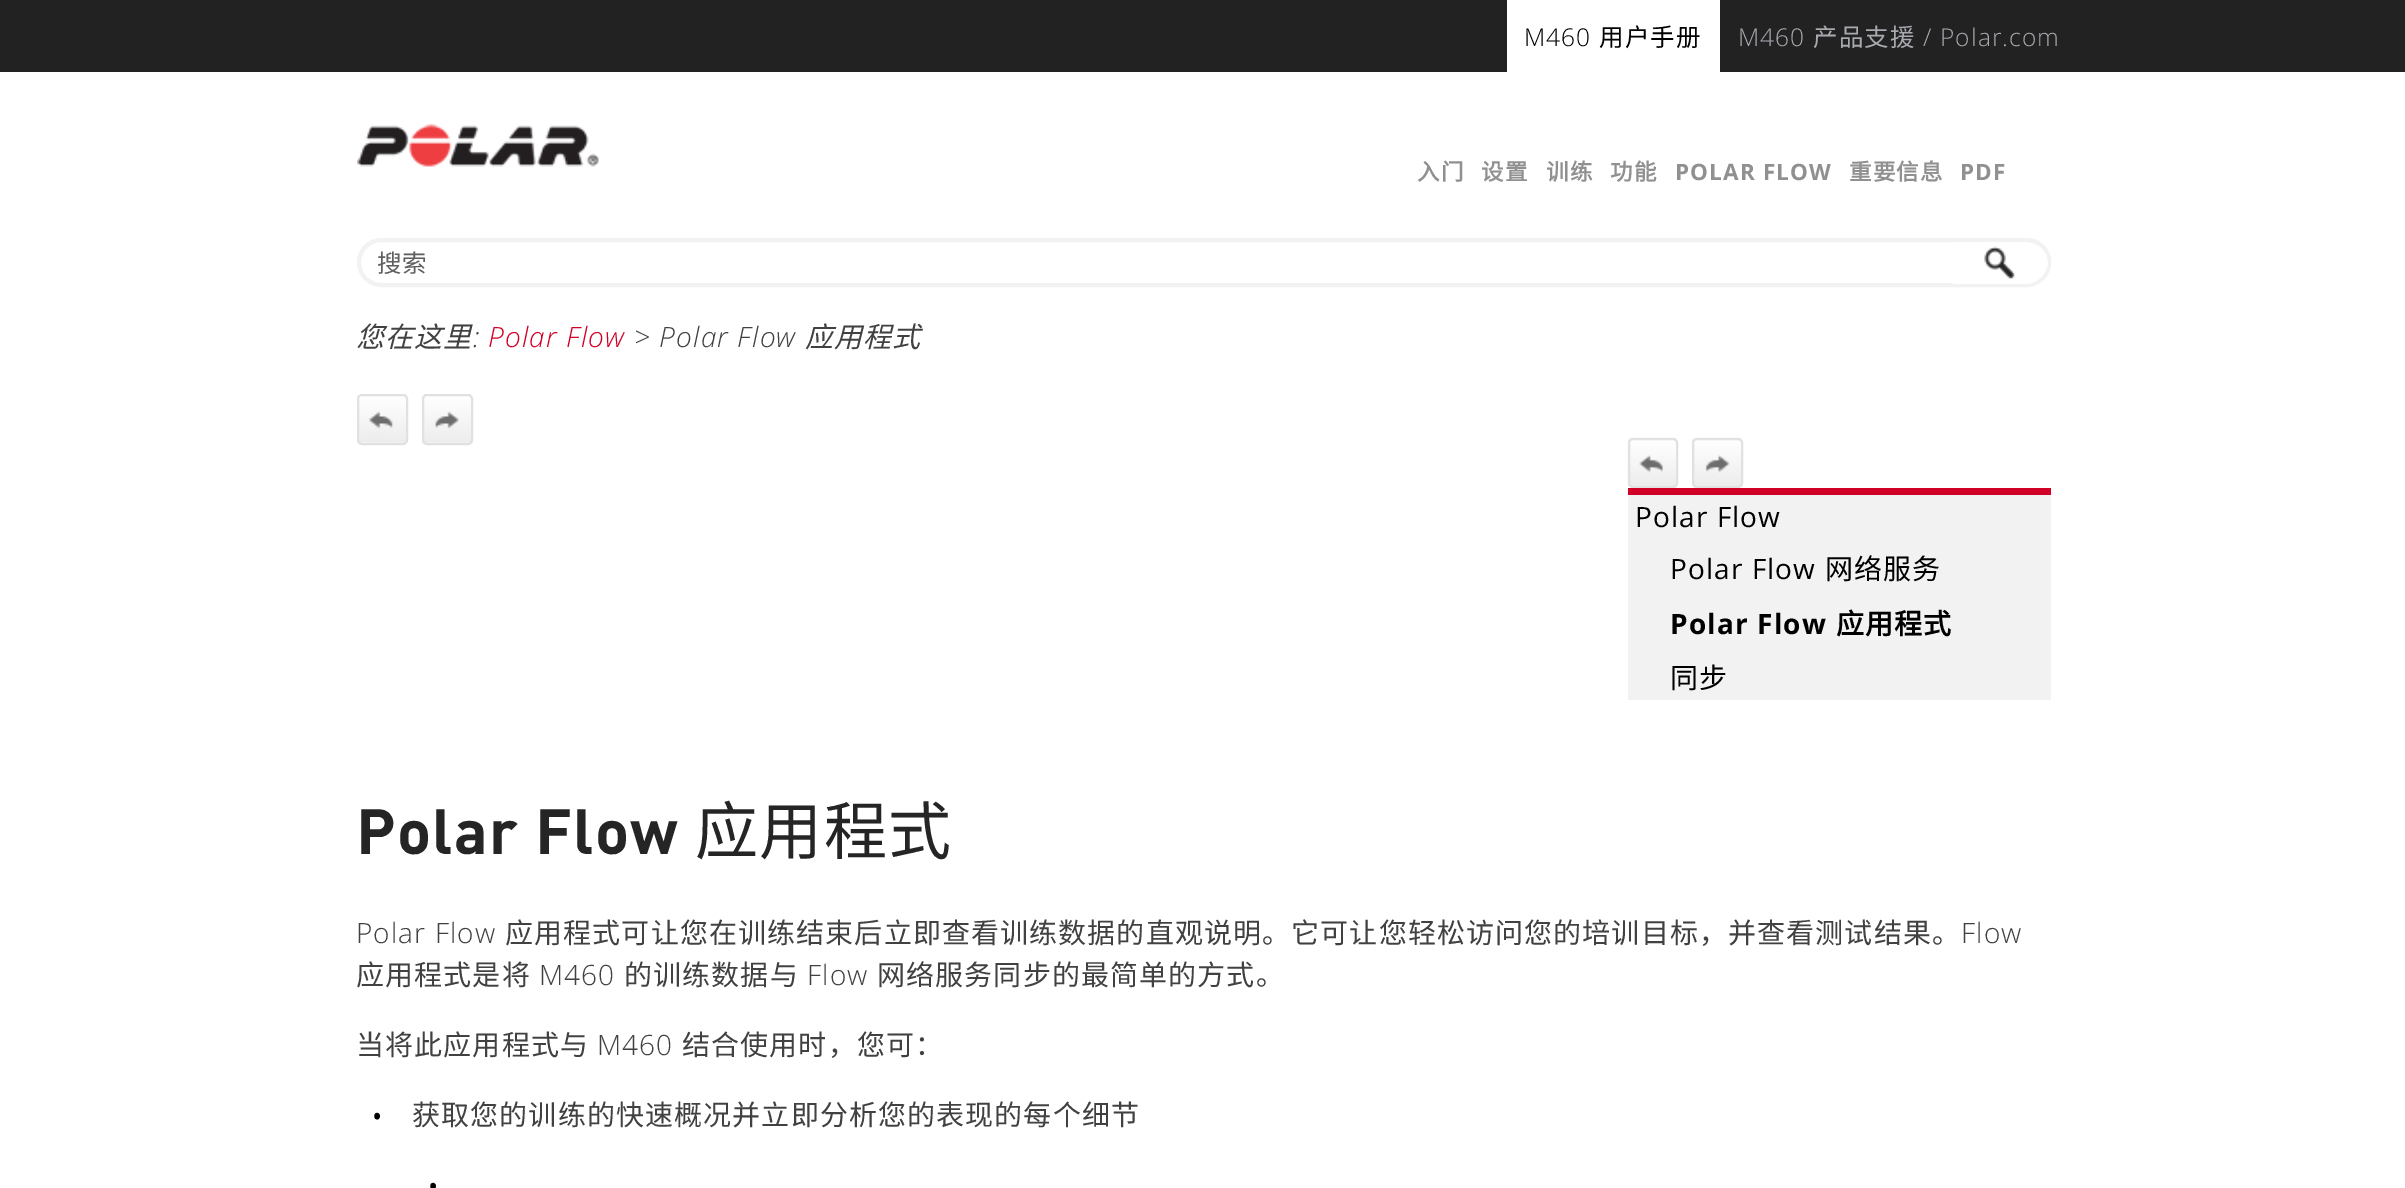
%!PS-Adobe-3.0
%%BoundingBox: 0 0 2405 1188
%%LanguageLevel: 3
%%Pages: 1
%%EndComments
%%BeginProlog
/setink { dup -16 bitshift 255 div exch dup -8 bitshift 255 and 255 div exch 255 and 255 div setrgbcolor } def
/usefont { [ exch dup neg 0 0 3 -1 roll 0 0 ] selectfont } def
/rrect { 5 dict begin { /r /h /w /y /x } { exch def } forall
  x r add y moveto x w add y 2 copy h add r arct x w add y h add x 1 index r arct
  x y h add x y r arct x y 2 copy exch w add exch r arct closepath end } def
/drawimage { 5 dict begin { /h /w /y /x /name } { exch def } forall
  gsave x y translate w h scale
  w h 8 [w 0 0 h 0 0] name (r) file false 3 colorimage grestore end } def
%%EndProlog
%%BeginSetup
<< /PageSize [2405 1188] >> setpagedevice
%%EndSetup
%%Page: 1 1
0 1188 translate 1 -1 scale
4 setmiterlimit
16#FFFFFF setink
0 0 2405 1188 rectfill
16#222222 setink
0 0 2405 72 rectfill
16#FFFFFF setink
1507 0 213 72 rectfill
/OpenSans-Light 24.5 usefont
16#000000 setink
1524 46 moveto 1.12 0 (M460) ashow
/NotoSansCJKSC-Regular 24.5 usefont
1599 46 moveto 1.12 0 (用户手册) ashow
/OpenSans-Light 24.5 usefont
16#A8AAAF setink
1738 46 moveto 1.12 0 (M460) ashow
/NotoSansCJKSC-Regular 24.5 usefont
1813 46 moveto 1.12 0 (产品支援) ashow
/OpenSans-Light 24.5 usefont
1923 46 moveto 1.12 0 (/ Polar.com) ashow
(img1.raw) 357 124 242 43 drawimage
/NotoSansCJKSC-Bold 22.5 usefont
16#909090 setink
1417 180 moveto 1.12 0 (入门) ashow
1481 180 moveto 1.12 0 (设置) ashow
1546 180 moveto 1.12 0 (训练) ashow
1610 180 moveto 1.12 0 (功能) ashow
/OpenSans-Bold 22.5 usefont
1675 180 moveto 1.12 0 (POLAR FLOW) ashow
/NotoSansCJKSC-Bold 22.5 usefont
1849 180 moveto 1.12 0 (重要信息) ashow
/OpenSans-Bold 22.5 usefont
1960 180 moveto 1.12 0 (PDF) ashow
16#F2F2F2 setink
4 setlinewidth
359 240 1690 45 22.5 rrect stroke
/NotoSansCJKSC-Regular 24.5 usefont
16#5F5F5F setink
377 272 moveto (搜索) show
16#FFFFFF setink
1953 238 moveto 2026.5 238 lineto 2040 238 2051 249 2051 262.5 curveto 2051 276 2040 287 2026.5 287 curveto 1953 287 lineto closepath fill
(img2.raw) 1984 246 31 33 drawimage
16#F2F2F2 setink
1953 238 moveto 2026 238 lineto 2040 238 2051 249 2051 262 curveto 2051 276 2040 287 2026 287 curveto 1953 287 lineto closepath 1953 242 moveto 2026 242 lineto 2038 242 2048 251 2048 262 curveto 2048 274 2038 284 2026 284 curveto 1953 284 lineto closepath eofill
/NotoSansCJKSC-Italic 28 usefont
16#414141 setink
356 347 moveto 1.12 0 (您在这里) ashow
/OpenSans-LightItalic 28 usefont
473 347 moveto 1.12 0 (:) ashow
16#D10027 setink
488 347 moveto 1.12 0 (Polar Flow) ashow
16#414141 setink
634 347 moveto 1.12 0 (> Polar Flow) ashow
/NotoSansCJKSC-Italic 28 usefont
805 347 moveto 1.12 0 (应用程式) ashow
(img3.raw) 357 394 51 49 drawimage
16#E1E1E1 setink
2 setlinewidth
358 395 49 49 4 rrect stroke
(img4.raw) 422 394 51 49 drawimage
423 395 49 49 4 rrect stroke
(img5.raw) 1627 437 51 50 drawimage
1629 439 48 48 4 rrect stroke
(img6.raw) 1692 437 51 50 drawimage
1693 439 49 48 4 rrect stroke
16#F2F2F2 setink
1628 495 423 205 rectfill
16#D10027 setink
1628 488 423 7 rectfill
/OpenSans-Regular 28 usefont
16#000000 setink
1635 527 moveto 1.12 0 (Polar Flow) ashow
1670 579 moveto 1.12 0 (Polar Flow) ashow
/NotoSansCJKSC-Regular 28 usefont
1825 579 moveto 1.12 0 (网络服务) ashow
/OpenSans-Bold 28 usefont
1670 634 moveto 1.12 0 (Polar Flow) ashow
/NotoSansCJKSC-Bold 28 usefont
1836 634 moveto 1.12 0 (应用程式) ashow
/NotoSansCJKSC-Regular 28 usefont
1670 688 moveto 1.12 0 (同步) ashow
/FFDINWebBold-Regular 63 usefont
16#252525 setink
356 854 moveto 1.25 0 (Polar Flow) ashow
/NotoSansCJKSC-Regular 63 usefont
695 854 moveto 1.25 0 (应用程式) ashow
/OpenSans-Light 28 usefont
16#414141 setink
356 943 moveto 1.12 0 (Polar Flow) ashow
/NotoSansCJKSC-Regular 28 usefont
505 943 moveto 1.12 0 (应用程式可让您在训练结束后立即查看训练数据的直观说明。它可让您轻松访问您的培训目标，并查看测试结果。) ashow
/OpenSans-Light 28 usefont
1961 943 moveto 1.12 0 (Flow) ashow
/NotoSansCJKSC-Regular 28 usefont
356 985 moveto 1.12 0 (应用程式是将) ashow
/OpenSans-Light 28 usefont
539 985 moveto 1.12 0 (M460) ashow
/NotoSansCJKSC-Regular 28 usefont
624 985 moveto 1.12 0 (的训练数据与) ashow
/OpenSans-Light 28 usefont
807 985 moveto 1.12 0 (Flow) ashow
/NotoSansCJKSC-Regular 28 usefont
877 985 moveto 1.12 0 (网络服务同步的最简单的方式。) ashow
356 1055 moveto 1.12 0 (当将此应用程式与) ashow
/OpenSans-Light 28 usefont
597 1055 moveto 1.12 0 (M460) ashow
/NotoSansCJKSC-Regular 28 usefont
682 1055 moveto 1.12 0 (结合使用时，您可：) ashow
/OpenSans-Light 38 usefont
16#000000 setink
370 1130 moveto 1.12 0 (•) ashow
/NotoSansCJKSC-Regular 28 usefont
16#414141 setink
412 1125 moveto 1.12 0 (获取您的训练的快速概况并立即分析您的表现的每个细节) ashow
/OpenSans-Light 38 usefont
16#000000 setink
426 1200 moveto 1.12 0 (•) ashow
showpage
%%EOF
